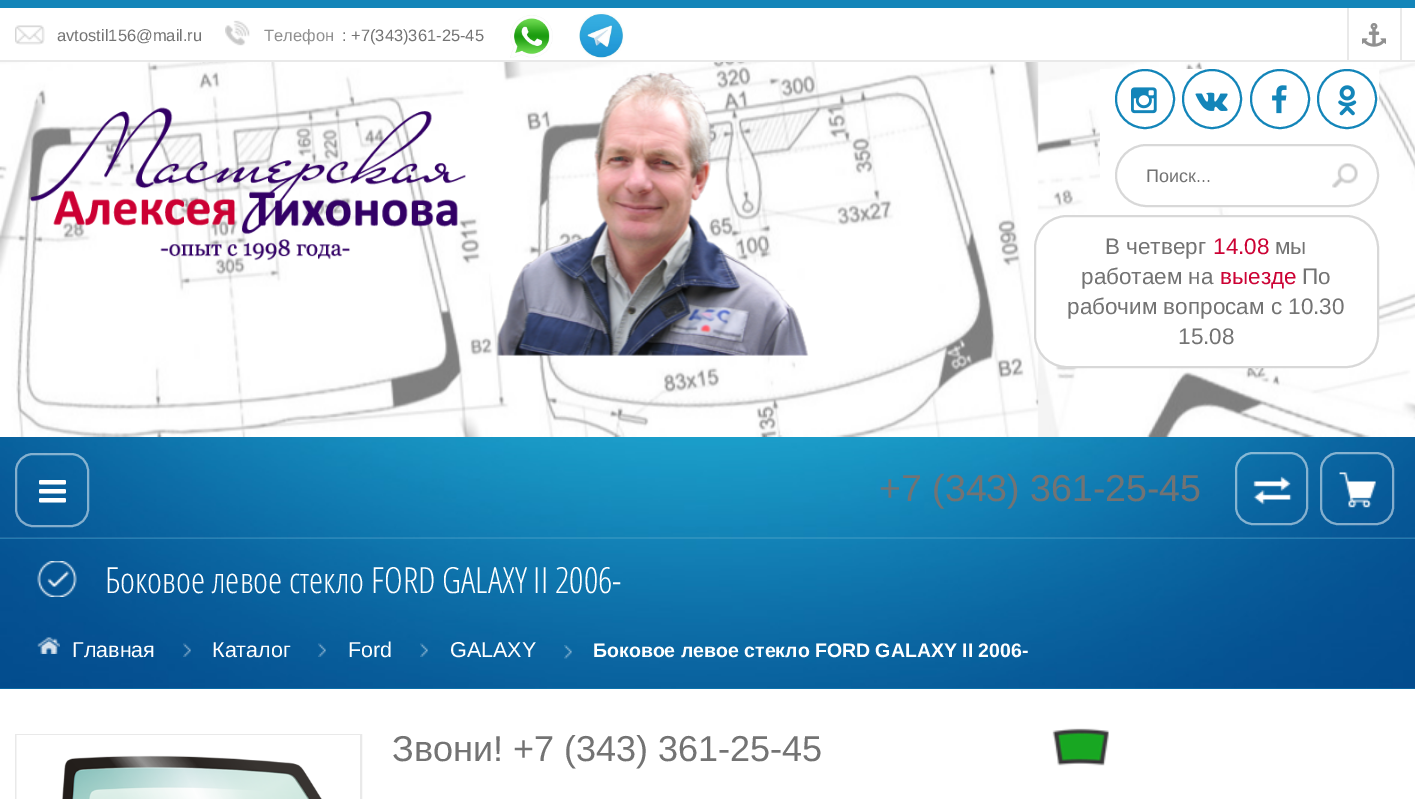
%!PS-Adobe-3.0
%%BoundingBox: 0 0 1415 799
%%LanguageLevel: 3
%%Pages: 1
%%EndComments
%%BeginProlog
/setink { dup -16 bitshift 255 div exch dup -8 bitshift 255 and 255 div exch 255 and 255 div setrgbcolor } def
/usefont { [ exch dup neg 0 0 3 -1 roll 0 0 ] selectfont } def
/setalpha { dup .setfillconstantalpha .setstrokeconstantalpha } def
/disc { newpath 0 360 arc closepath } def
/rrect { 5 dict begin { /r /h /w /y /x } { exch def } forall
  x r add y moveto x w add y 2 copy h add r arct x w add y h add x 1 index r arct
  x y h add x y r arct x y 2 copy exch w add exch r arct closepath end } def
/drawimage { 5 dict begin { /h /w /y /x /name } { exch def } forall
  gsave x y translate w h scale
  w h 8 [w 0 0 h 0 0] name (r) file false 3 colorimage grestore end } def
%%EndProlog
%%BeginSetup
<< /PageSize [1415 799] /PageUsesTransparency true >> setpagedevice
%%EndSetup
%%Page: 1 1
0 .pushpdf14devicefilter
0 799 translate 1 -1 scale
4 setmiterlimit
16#FFFFFF setink
0 0 1415 799 rectfill
16#1385B9 setink
0 0 1415 8 rectfill
(img1.raw) 15 25 30 20 drawimage
/LiberationSans-Regular 16.5 usefont
16#737373 setink
57 41 moveto (avtostil156@mail.ru) show
(img2.raw) 225 20 25 26 drawimage
16#909090 setink
264 41 moveto (Телефон) show
16#737373 setink
342 41 moveto (: +7\(343\)361-25-45) show
(img3.raw) 510 15 43 43 drawimage
(img4.raw) 579 12 45 46 drawimage
[
    [0 60 1415 2 16#E9E9E9]
    [1400 8 2 54 16#E9E9E9]
    [1347 8 2 54 16#E9E9E9]
] { aload pop setink rectfill } forall
(img5.raw) 1362 23 24 24 drawimage
(img6.raw) 0 62 1415 375 drawimage
(img7.raw) 30 107 436 154 drawimage
(img8.raw) 496 71 313 285 drawimage
16#FFFFFF setink
1100 69 279 138 rectfill
16#1385B9 setink
2 setlinewidth
1145 99 29 disc stroke
(img9.raw) 1131 87 26 27 drawimage
1212 99 29 disc stroke
(img10.raw) 1195 92 33 19 drawimage
1280 99 29 disc stroke
(img11.raw) 1272 85 15 29 drawimage
1347 99 29 disc stroke
(img12.raw) 1338 85 19 31 drawimage
16#D8D8D8 setink
1116 145 262 61 30.5 rrect stroke
/LiberationSans-Regular 18 usefont
16#737373 setink
1146 182 moveto (Поиск...) show
(img13.raw) 1332 163 26 25 drawimage
16#FFFFFF setink
1035 216 343 151 32 rrect gsave fill grestore
16#D8D8D8 setink
stroke
/LiberationSans-Regular 22.5 usefont
16#737373 setink
1105 254 moveto (В четверг) show
16#CC0234 setink
1213 254 moveto (14.08) show
16#737373 setink
1275 254 moveto (мы) show
1081 284 moveto (работаем на) show
16#CC0234 setink
1220 284 moveto (выезде) show
16#737373 setink
[
    [(По) 1302 284]
    [(рабочим вопросам с 10.30) 1067 314]
    [(15.08) 1178 344]
] { aload pop moveto show } forall
16#1385B9 setink
0 538 1415 1 rectfill
(img14.raw) 0 437 1415 102 drawimage
0.5 setalpha
16#FFFFFF setink
16 454 72 72 17 rrect stroke
1 setalpha
(img15.raw) 39 480 27 23 drawimage
/LiberationSans-Regular 37.5 usefont
16#737373 setink
879 501 moveto (+7 \(343\) 361-25-45) show
(img16.raw) 1253 476 39 29 drawimage
0.5 setalpha
16#FFFFFF setink
1236 453 71 71 17 rrect stroke
1 setalpha
(img17.raw) 1339 472 37 36 drawimage
0.5 setalpha
1321 453 72 71 17 rrect stroke
0.1 setalpha
0 537 1415 2 rectfill
1 setalpha
16#1385B9 setink
0 688 1415 1 rectfill
(img18.raw) 0 539 1415 150 drawimage
(img19.raw) 37 561 40 36 drawimage
/OpenSansCondensed-Light 36 usefont
16#FFFFFF setink
105 593 moveto (Боковое левое стекло FORD GALAXY II 2006-) show
(img20.raw) 37 637 23 17 drawimage
/LiberationSans-Regular 21.5 usefont
72 657 moveto (Главная) show
(img21.raw) 183 643 8 14 drawimage
212 657 moveto (Каталог) show
(img22.raw) 318 643 8 14 drawimage
348 657 moveto (Ford) show
(img23.raw) 420 643 8 14 drawimage
450 657 moveto (GALAXY) show
(img24.raw) 564 645 8 14 drawimage
/LiberationSans-Bold 19.5 usefont
593 657 moveto (Боковое левое стекло FORD GALAXY II 2006-) show
16#E9E9E9 setink
16 735 345 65 rectstroke
(img25.raw) 16 735 344 64 drawimage
/LiberationSans-Regular 36 usefont
16#737373 setink
392 761 moveto (Звони! +7 \(343\) 361-25-45) show
(img26.raw) 1052 728 57 38 drawimage
.poppdf14devicefilter showpage
%%EOF
